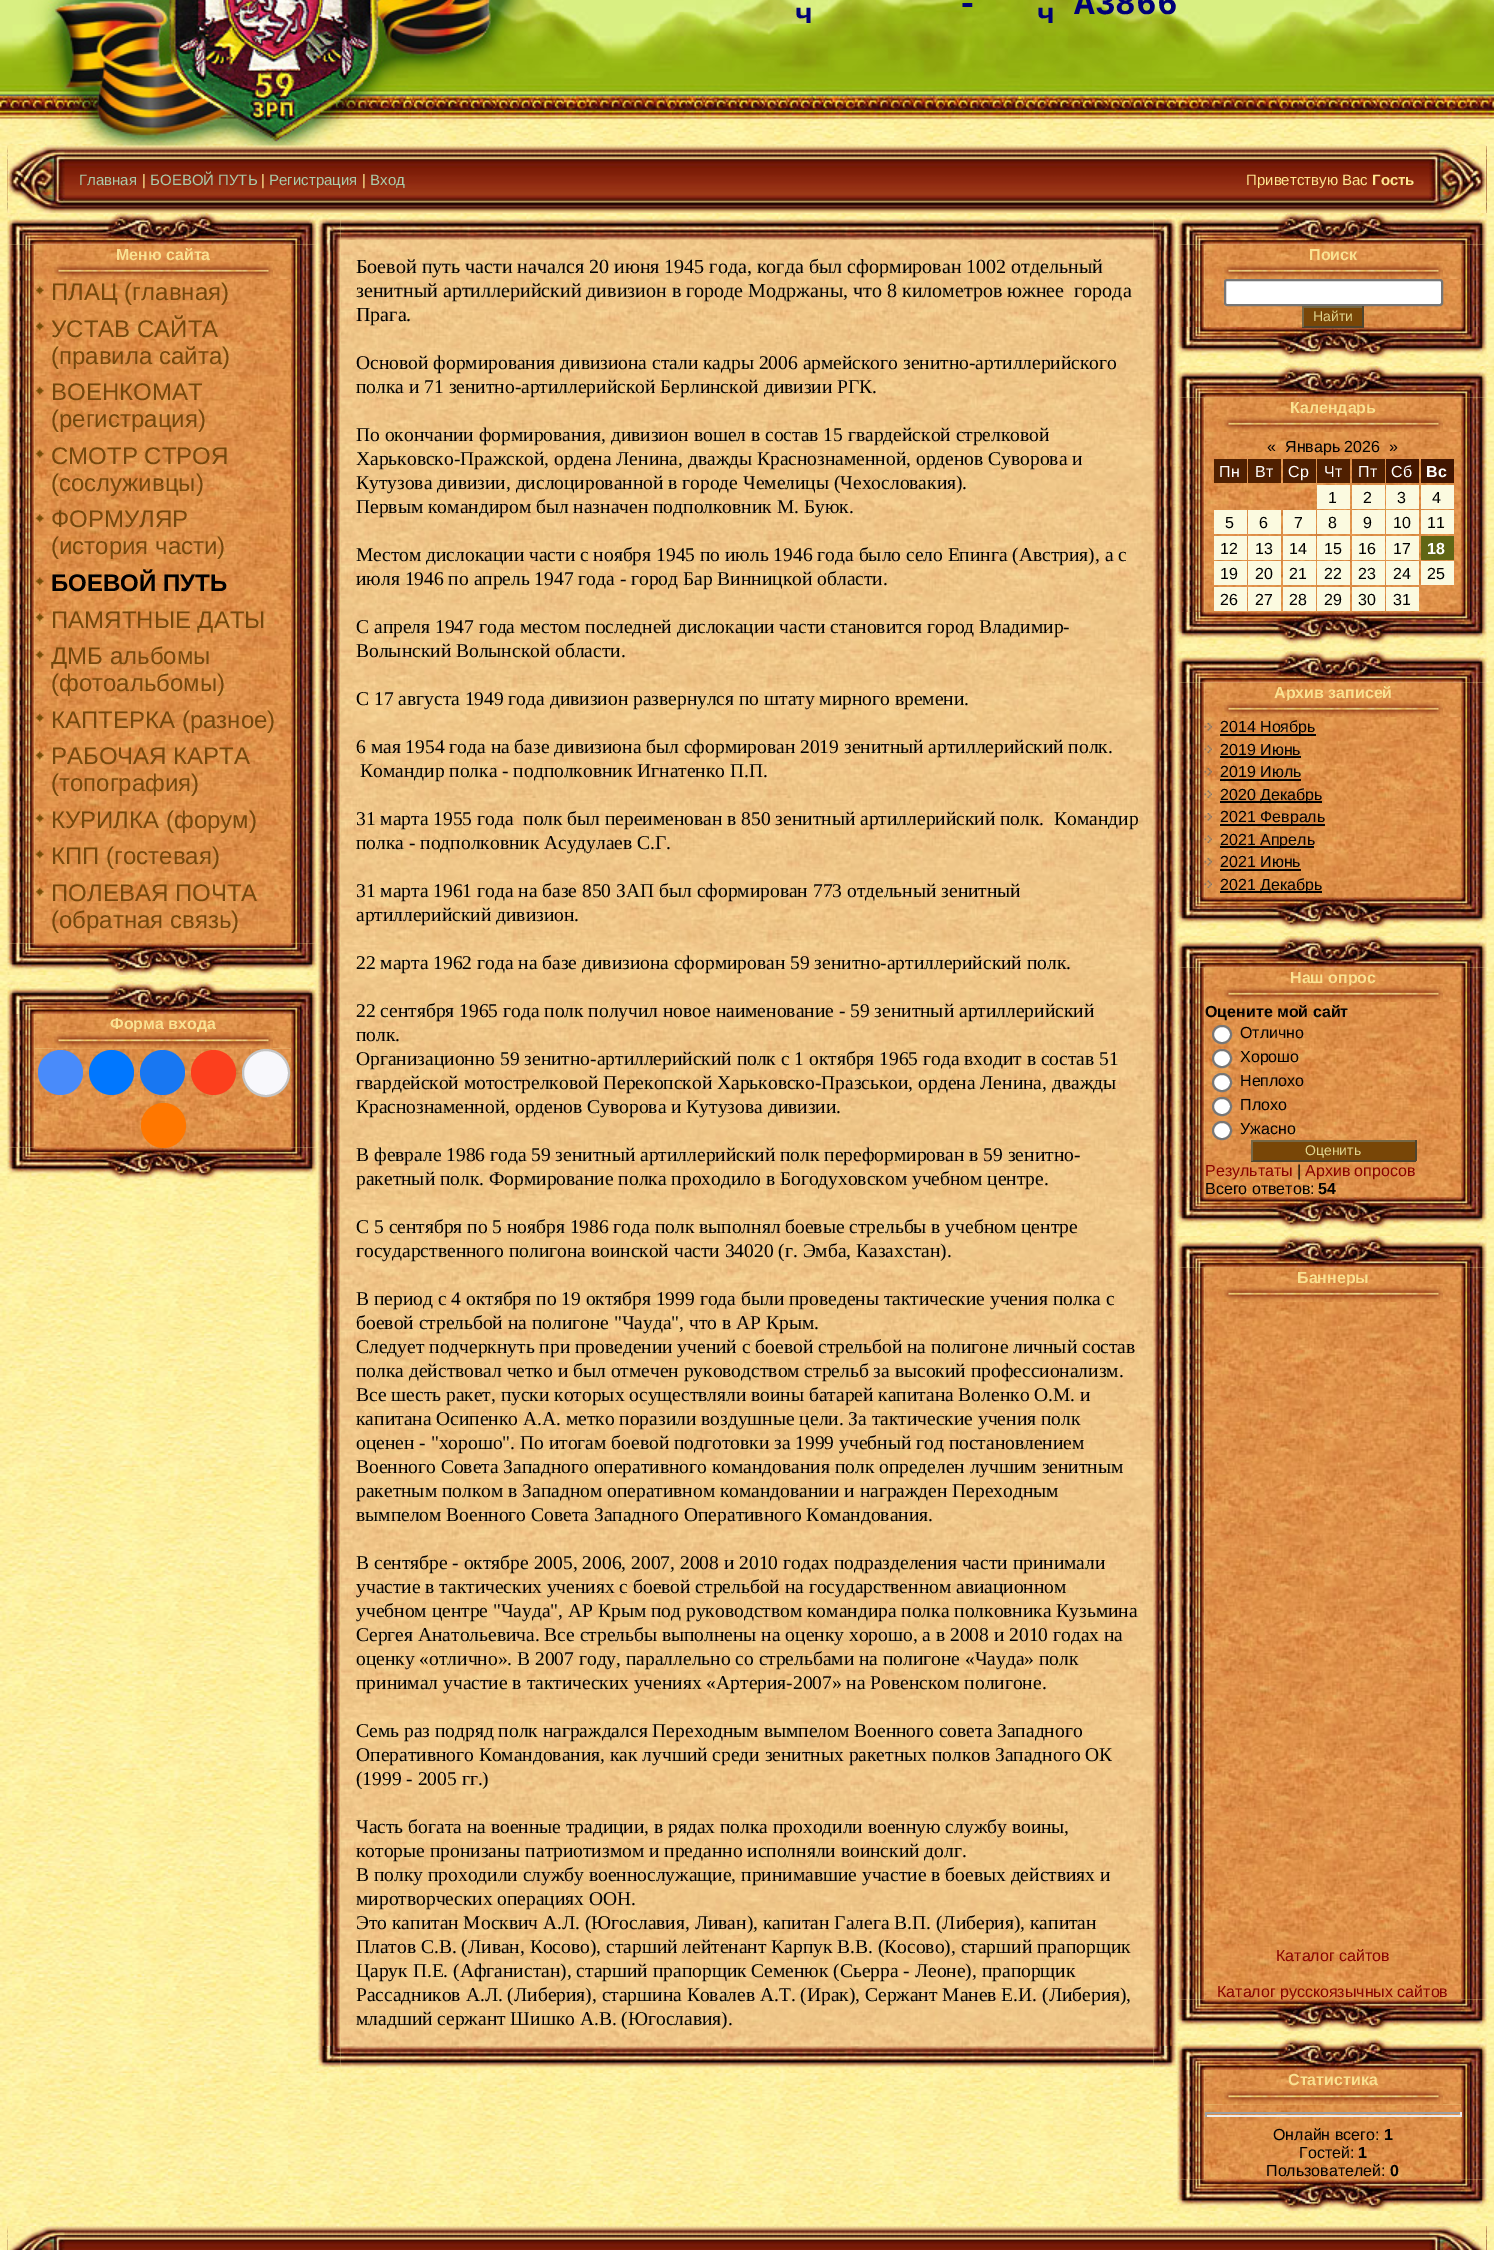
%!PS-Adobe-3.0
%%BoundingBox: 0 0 1494 2250
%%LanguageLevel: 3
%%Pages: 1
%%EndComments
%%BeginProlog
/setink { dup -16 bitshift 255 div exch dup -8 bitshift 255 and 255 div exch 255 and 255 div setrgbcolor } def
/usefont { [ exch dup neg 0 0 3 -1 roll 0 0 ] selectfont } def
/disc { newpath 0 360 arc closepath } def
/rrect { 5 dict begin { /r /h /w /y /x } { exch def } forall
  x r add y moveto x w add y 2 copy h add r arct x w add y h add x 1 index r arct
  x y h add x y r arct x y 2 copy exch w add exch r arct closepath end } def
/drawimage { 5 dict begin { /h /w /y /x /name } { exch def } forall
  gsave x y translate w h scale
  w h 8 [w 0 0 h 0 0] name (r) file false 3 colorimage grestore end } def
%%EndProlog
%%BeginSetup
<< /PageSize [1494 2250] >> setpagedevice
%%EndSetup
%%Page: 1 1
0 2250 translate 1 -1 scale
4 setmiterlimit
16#FFFFFF setink
0 0 1494 2250 rectfill
(img1.raw) 0 118 1494 2132 drawimage
(img2.raw) 561 0 933 119 drawimage
(img4.raw) 7 145 1480 68 drawimage
(img3.raw) 0 0 561 146 drawimage
/LiberationMono-Bold 34.5 usefont
16#000077 setink
957 14 moveto (-) show
1074 14 moveto (A3866) show
/LiberationMono-Bold 29 usefont
795 23 moveto (ч) show
1037 23 moveto (ч) show
(img5.raw) 7 145 58 68 drawimage
/LiberationSans-Regular 15 usefont
16#AACCAA setink
79 185 moveto (Главная) show
16#FFE991 setink
142 185 moveto (|) show
16#AACCAA setink
150 185 moveto (БОЕВОЙ ПУТЬ) show
16#FFE991 setink
261 185 moveto (|) show
16#AACCAA setink
269 185 moveto (Регистрация) show
16#FFE991 setink
362 185 moveto (|) show
16#AACCAA setink
370 185 moveto (Вход) show
16#FFE991 setink
1246 185 moveto (Приветствую Вас) show
/LiberationSans-Bold 15 usefont
1372 185 moveto (Гость) show
(img6.raw) 1429 145 58 68 drawimage
(img8.raw) 7 244 28 700 drawimage
(img9.raw) 34 244 257 35 drawimage
(img11.raw) 291 244 26 700 drawimage
(img31.raw) 291 1014 26 134 drawimage
(img37.raw) 316 240 25 1806 drawimage
(img7.raw) 7 213 310 32 drawimage
/LiberationSans-Bold 16 usefont
16#FAE291 setink
116 260 moveto (Меню сайта) show
(img10.raw) 52 262 221 17 drawimage
(img12.raw) 34 279 257 665 drawimage
(img13.raw) 35 286 9 9 drawimage
/LiberationSans-Regular 24 usefont
16#73470D setink
51 300 moveto (ПЛАЦ \(главная\)) show
(img14.raw) 35 322 9 9 drawimage
51 337 moveto (УСТАВ САЙТА) show
51 364 moveto (\(правила сайта\)) show
(img15.raw) 35 386 9 9 drawimage
51 400 moveto (ВОЕНКОМАТ) show
51 427 moveto (\(регистрация\)) show
(img16.raw) 35 449 9 9 drawimage
51 464 moveto (СМОТР СТРОЯ) show
51 491 moveto (\(сослуживцы\)) show
(img17.raw) 35 514 9 9 drawimage
51 527 moveto (ФОРМУЛЯР) show
51 554 moveto (\(история части\)) show
(img18.raw) 35 577 9 9 drawimage
/LiberationSans-Bold 24 usefont
16#000000 setink
51 591 moveto (БОЕВОЙ ПУТЬ) show
(img19.raw) 35 613 9 9 drawimage
/LiberationSans-Regular 24 usefont
16#73470D setink
51 628 moveto (ПАМЯТНЫЕ ДАТЫ) show
(img20.raw) 35 650 9 9 drawimage
51 664 moveto (ДМБ альбомы) show
51 691 moveto (\(фотоальбомы\)) show
(img21.raw) 35 713 9 9 drawimage
51 728 moveto (КАПТЕРКА \(разное\)) show
(img22.raw) 35 751 9 9 drawimage
51 764 moveto (РАБОЧАЯ КАРТА) show
51 791 moveto (\(топография\)) show
(img23.raw) 35 814 9 9 drawimage
51 828 moveto (КУРИЛКА \(форум\)) show
(img24.raw) 35 850 9 9 drawimage
51 864 moveto (КПП \(гостевая\)) show
(img25.raw) 35 887 9 9 drawimage
51 901 moveto (ПОЛЕВАЯ ПОЧТА) show
51 928 moveto (\(обратная связь\)) show
(img26.raw) 7 943 310 32 drawimage
(img27.raw) 7 982 310 32 drawimage
(img28.raw) 7 1014 28 134 drawimage
(img29.raw) 34 1014 257 35 drawimage
/LiberationSans-Bold 16 usefont
16#FAE291 setink
110 1029 moveto (Форма входа) show
(img32.raw) 34 1048 257 100 drawimage
(img30.raw) 52 1032 221 17 drawimage
16#498BFA setink
60.5 1072.5 22.5 disc fill
16#0077FF setink
111.5 1072.5 22.5 disc fill
16#1877F2 setink
162.5 1072.5 22.5 disc fill
16#FC3F1D setink
213.5 1072.5 22.5 disc fill
16#F8F8FC setink
266 1073 23 disc gsave fill grestore
16#C4C4C4 setink
2 setlinewidth
stroke
(img33.raw) 7 1147 310 32 drawimage
16#FF7700 setink
163.5 1125.5 22.5 disc fill
(img35.raw) 340 213 814 27 drawimage
(img34.raw) 316 213 25 27 drawimage
(img36.raw) 1153 213 25 27 drawimage
(img38.raw) 340 240 814 1806 drawimage
/LiberationSerif-Regular 20 usefont
16#000000 setink
[
    [(Боевой путь части начался 20 июня 1945 года, когда был сформирован 1002 отдельный) 356 273]
    [(зенитный артиллерийский дивизион в городе Модржаны, что 8 километров южнее  города) 356 297]
    [(Прага.) 356 321]
] { aload pop moveto show } forall
/LiberationSerif-Regular 19.5 usefont
[
    [(Основой формирования дивизиона стали кадры 2006 армейского зенитно-артиллерийского) 356 369]
    [(полка и 71 зенитно-артиллерийской Берлинской дивизии РГК.) 356 393]
    [(По окончании формирования, дивизион вошел в состав 15 гвардейской стрелковой) 356 441]
    [(Харьковско-Пражской, ордена Ленина, дважды Краснознаменной, орденов Суворова и) 356 465]
    [(Кутузова дивизии, дислоцированной в городе Чемелицы \(Чехословакия\).) 356 489]
    [(Первым командиром был назначен подполковник М. Буюк.) 356 513]
    [(Местом дислокации части с ноября 1945 по июль 1946 года было село Епинга \(Австрия\), а с) 356 561]
    [(июля 1946 по апрель 1947 года - город Бар Винницкой области.) 356 585]
    [(С апреля 1947 года местом последней дислокации части становится город Владимир-) 356 633]
    [(Волынский Волынской области.) 356 657]
    [(С 17 августа 1949 года дивизион развернулся по штату мирного времени.) 356 705]
    [(6 мая 1954 года на базе дивизиона был сформирован 2019 зенитный артиллерийский полк.) 356 753]
    [(Командир полка - подполковник Игнатенко П.П.) 360 777]
    [(31 марта 1955 года  полк был переименован в 850 зенитный артиллерийский полк.  Командир) 356 825]
    [(полка - подполковник Асудулаев С.Г.) 356 849]
    [(31 марта 1961 года на базе 850 ЗАП был сформирован 773 отдельный зенитный) 356 897]
    [(артиллерийский дивизион.) 356 921]
    [(22 марта 1962 года на базе дивизиона сформирован 59 зенитно-артиллерийский полк.) 356 969]
    [(22 сентября 1965 года полк получил новое наименование - 59 зенитный артиллерийский) 356 1017]
    [(полк.) 356 1041]
    [(Организационно 59 зенитно-артиллерийский полк с 1 октября 1965 года входит в состав 51) 356 1065]
    [(гвардейской мотострелковой Перекопской Харьковско-Празськои, ордена Ленина, дважды) 356 1089]
    [(Краснознаменной, орденов Суворова и Кутузова дивизии.) 356 1113]
    [(В феврале 1986 года 59 зенитный артиллерийский полк переформирован в 59 зенитно-) 356 1161]
    [(ракетный полк. Формирование полка проходило в Богодуховском учебном центре.) 356 1185]
    [(С 5 сентября по 5 ноября 1986 года полк выполнял боевые стрельбы в учебном центре) 356 1233]
    [(государственного полигона воинской части 34020 \(г. Эмба, Казахстан\).) 356 1257]
    [(В период с 4 октября по 19 октября 1999 года были проведены тактические учения полка с) 356 1305]
    [(боевой стрельбой на полигоне "Чауда", что в АР Крым.) 356 1329]
    [(Следует подчеркнуть при проведении учений с боевой стрельбой на полигоне личный состав) 356 1353]
    [(полка действовал четко и был отмечен руководством стрельб за высокий профессионализм.) 356 1377]
    [(Все шесть ракет, пуски которых осуществляли воины батарей капитана Воленко О.М. и) 356 1401]
    [(капитана Осипенко А.А. метко поразили воздушные цели. За тактические учения полк) 356 1425]
    [(оценен - "хорошо". По итогам боевой подготовки за 1999 учебный год постановлением) 356 1449]
    [(Военного Совета Западного оперативного командования полк определен лучшим зенитным) 356 1473]
    [(ракетным полком в Западном оперативном командовании и награжден Переходным) 356 1497]
    [(вымпелом Военного Совета Западного Оперативного Командования.) 356 1521]
    [(В сентябре - октябре 2005, 2006, 2007, 2008 и 2010 годах подразделения части принимали) 356 1569]
    [(участие в тактических учениях с боевой стрельбой на государственном авиационном) 356 1593]
    [(учебном центре "Чауда", АР Крым под руководством командира полка полковника Кузьмина) 356 1617]
    [(Сергея Анатольевича. Все стрельбы выполнены на оценку хорошо, а в 2008 и 2010 годах на) 356 1641]
    [(оценку «отлично». В 2007 году, параллельно со стрельбами на полигоне «Чауда» полк) 356 1665]
    [(принимал участие в тактических учениях «Артерия-2007» на Ровенском полигоне.) 356 1689]
    [(Семь раз подряд полк награждался Переходным вымпелом Военного совета Западного) 356 1737]
    [(Оперативного Командования, как лучший среди зенитных ракетных полков Западного ОК) 356 1761]
    [(\(1999 - 2005 гг.\)) 356 1785]
    [(Часть богата на военные традиции, в рядах полка проходили военную службу воины,) 356 1833]
    [(которые пронизаны патриотизмом и преданно исполняли воинский долг.) 356 1857]
    [(В полку проходили службу военнослужащие, принимавшие участие в боевых действиях и) 356 1881]
    [(миротворческих операциях ООН.) 356 1905]
    [(Это капитан Москвич А.Л. \(Югославия, Ливан\), капитан Галега В.П. \(Либерия\), капитан) 356 1929]
    [(Платов С.В. \(Ливан, Косово\), старший лейтенант Карпук В.В. \(Косово\), старший прапорщик) 356 1953]
    [(Царук П.Е. \(Афганистан\), старший прапорщик Семенюк \(Сьерра - Леоне\), прапорщик) 356 1977]
    [(Рассадников А.Л. \(Либерия\), старшина Ковалев А.Т. \(Ирак\), Сержант Манев Е.И. \(Либерия\),) 356 2001]
    [(младший сержант Шишко А.В. \(Югославия\).) 356 2025]
] { aload pop moveto show } forall
(img39.raw) 1153 240 25 1806 drawimage
(img41.raw) 340 2046 814 27 drawimage
(img40.raw) 316 2046 25 27 drawimage
(img87.raw) 1177 2070 28 110 drawimage
(img42.raw) 1153 2046 25 27 drawimage
(img44.raw) 1177 244 28 83 drawimage
(img45.raw) 1204 244 257 35 drawimage
(img47.raw) 1461 244 26 83 drawimage
(img43.raw) 1177 213 310 32 drawimage
/LiberationSans-Bold 16 usefont
16#FAE291 setink
1309 260 moveto (Поиск) show
(img46.raw) 1222 262 221 17 drawimage
(img48.raw) 1204 279 257 48 drawimage
16#FFFFFF setink
1225 280 217 25 2 rrect gsave fill grestore
16#767676 setink
stroke
[
    [1304 308 58 18 16#784607]
    [1302 306 62 2 16#756746]
    [1362 306 2 21 16#4E452F]
] { aload pop setink rectfill } forall
(img49.raw) 1177 327 310 32 drawimage
1302 326 62 2 rectfill
16#756746 setink
1302 306 2 21 rectfill
/LiberationSans-Regular 14 usefont
16#E1D790 setink
1313 321 moveto (Найти) show
(img51.raw) 1177 397 28 215 drawimage
(img52.raw) 1204 397 257 35 drawimage
(img54.raw) 1461 397 26 215 drawimage
(img50.raw) 1177 366 310 32 drawimage
/LiberationSans-Bold 16 usefont
16#FAE291 setink
1290 413 moveto (Календарь) show
(img53.raw) 1222 415 221 17 drawimage
(img55.raw) 1204 432 257 180 drawimage
/LiberationSans-Regular 16 usefont
16#000000 setink
[
    [(«) 1267 452]
    [(Январь 2026) 1285 452]
    [(») 1389 452]
] { aload pop moveto show } forall
16#4F1F00 setink
1214 459 33 24 rectfill
16#FFFFFF setink
1219 477 moveto (Пн) show
16#4F1F00 setink
1248 459 33 24 rectfill
16#FFFFFF setink
1255 477 moveto (Вт) show
16#4F1F00 setink
1283 459 33 24 rectfill
16#FFFFFF setink
1288 477 moveto (Ср) show
16#4F1F00 setink
1317 459 33 24 rectfill
16#FFFFFF setink
1324 477 moveto (Чт) show
16#4F1F00 setink
1352 459 33 24 rectfill
16#FFFFFF setink
1358 477 moveto (Пт) show
16#421500 setink
1386 459 33 24 rectfill
16#FFFFFF setink
1391 477 moveto (Сб) show
16#421500 setink
1421 459 33 24 rectfill
/LiberationSans-Bold 16 usefont
16#FFFFFF setink
1426 477 moveto (Вс) show
16#FBFAE0 setink
1317 485 33 24 rectfill
/LiberationSans-Regular 16 usefont
16#000000 setink
1328 503 moveto (1) show
16#FBFAE0 setink
1352 485 33 24 rectfill
16#000000 setink
1363 503 moveto (2) show
16#FBFAE0 setink
1386 485 33 24 rectfill
16#000000 setink
1397 503 moveto (3) show
16#FBFAE0 setink
1421 485 33 24 rectfill
16#000000 setink
1432 503 moveto (4) show
16#FBFAE0 setink
1214 510 33 24 rectfill
16#000000 setink
1225 528 moveto (5) show
16#FBFAE0 setink
1248 510 33 24 rectfill
16#000000 setink
1259 528 moveto (6) show
16#FBFAE0 setink
1283 510 33 24 rectfill
16#000000 setink
1294 528 moveto (7) show
16#FBFAE0 setink
1317 510 33 24 rectfill
16#000000 setink
1328 528 moveto (8) show
16#FBFAE0 setink
1352 510 33 24 rectfill
16#000000 setink
1363 528 moveto (9) show
16#FBFAE0 setink
1386 510 33 24 rectfill
16#000000 setink
1393 528 moveto (10) show
16#FBFAE0 setink
1421 510 33 24 rectfill
16#000000 setink
1427 528 moveto (11) show
16#FBFAE0 setink
1214 536 33 24 rectfill
16#000000 setink
1220 554 moveto (12) show
16#FBFAE0 setink
1248 536 33 24 rectfill
16#000000 setink
1255 554 moveto (13) show
16#FBFAE0 setink
1283 536 33 24 rectfill
16#000000 setink
1289 554 moveto (14) show
16#FBFAE0 setink
1317 536 33 24 rectfill
16#000000 setink
1324 554 moveto (15) show
16#FBFAE0 setink
1352 536 33 24 rectfill
16#000000 setink
1358 554 moveto (16) show
16#FBFAE0 setink
1386 536 33 24 rectfill
16#000000 setink
1393 554 moveto (17) show
16#606615 setink
1421 536 33 24 rectfill
/LiberationSans-Bold 16 usefont
16#FFFFFF setink
1427 554 moveto (18) show
16#FBFAE0 setink
1214 561 33 24 rectfill
/LiberationSans-Regular 16 usefont
16#000000 setink
1220 579 moveto (19) show
16#FBFAE0 setink
1248 561 33 24 rectfill
16#000000 setink
1255 579 moveto (20) show
16#FBFAE0 setink
1283 561 33 24 rectfill
16#000000 setink
1289 579 moveto (21) show
16#FBFAE0 setink
1317 561 33 24 rectfill
16#000000 setink
1324 579 moveto (22) show
16#FBFAE0 setink
1352 561 33 24 rectfill
16#000000 setink
1358 579 moveto (23) show
16#FBFAE0 setink
1386 561 33 24 rectfill
16#000000 setink
1393 579 moveto (24) show
16#FBFAE0 setink
1421 561 33 24 rectfill
16#000000 setink
1427 579 moveto (25) show
16#FBFAE0 setink
1214 587 33 24 rectfill
16#000000 setink
1220 605 moveto (26) show
16#FBFAE0 setink
1248 587 33 24 rectfill
16#000000 setink
1255 605 moveto (27) show
16#FBFAE0 setink
1283 587 33 24 rectfill
16#000000 setink
1289 605 moveto (28) show
16#FBFAE0 setink
1317 587 33 24 rectfill
16#000000 setink
1324 605 moveto (29) show
16#FBFAE0 setink
1352 587 33 24 rectfill
16#000000 setink
1358 605 moveto (30) show
16#FBFAE0 setink
1386 587 33 24 rectfill
16#000000 setink
1393 605 moveto (31) show
(img56.raw) 1177 612 310 32 drawimage
(img58.raw) 1177 682 28 215 drawimage
(img59.raw) 1204 682 257 35 drawimage
(img61.raw) 1461 682 26 215 drawimage
(img57.raw) 1177 651 310 32 drawimage
/LiberationSans-Bold 16 usefont
16#FAE291 setink
1274 698 moveto (Архив записей) show
(img60.raw) 1222 700 221 17 drawimage
(img62.raw) 1204 717 257 180 drawimage
(img63.raw) 1204 723 8 8 drawimage
16#000000 setink
1220 734 96 2 rectfill
/LiberationSans-Regular 16 usefont
1220 732 moveto (2014 Ноябрь) show
(img64.raw) 1204 745 8 8 drawimage
1220 755 moveto (2019 Июнь) show
1220 756 81 2 rectfill
(img65.raw) 1204 768 8 8 drawimage
1220 777 moveto (2019 Июль) show
1220 779 81 2 rectfill
(img66.raw) 1204 790 8 8 drawimage
1220 801 102 2 rectfill
1220 800 moveto (2020 Декабрь) show
(img67.raw) 1204 813 8 8 drawimage
1220 824 105 2 rectfill
1220 822 moveto (2021 Февраль) show
(img68.raw) 1204 835 8 8 drawimage
1220 846 94 2 rectfill
1220 845 moveto (2021 Апрель) show
(img69.raw) 1204 858 8 8 drawimage
1220 867 moveto (2021 Июнь) show
1220 869 81 2 rectfill
(img70.raw) 1204 880 8 8 drawimage
1220 891 102 2 rectfill
1220 890 moveto (2021 Декабрь) show
(img71.raw) 1177 897 310 32 drawimage
(img73.raw) 1177 967 28 230 drawimage
(img74.raw) 1204 967 257 35 drawimage
(img76.raw) 1461 967 26 230 drawimage
(img72.raw) 1177 936 310 32 drawimage
/LiberationSans-Bold 16 usefont
16#FAE291 setink
1290 983 moveto (Наш опрос) show
(img75.raw) 1222 985 221 17 drawimage
(img77.raw) 1204 1002 257 195 drawimage
16#000000 setink
1205 1017 moveto (Оцените мой сайт) show
16#FFFFFF setink
1213 1026 18 17 8.5 rrect gsave fill grestore
16#767676 setink
stroke
/LiberationSans-Regular 16 usefont
16#000000 setink
1240 1038 moveto (Отлично) show
16#FFFFFF setink
1213 1050 18 17 8.5 rrect gsave fill grestore
16#767676 setink
stroke
16#000000 setink
1240 1062 moveto (Хорошо) show
16#FFFFFF setink
1213 1074 18 17 8.5 rrect gsave fill grestore
16#767676 setink
stroke
16#000000 setink
1240 1086 moveto (Неплохо) show
16#FFFFFF setink
1213 1098 18 17 8.5 rrect gsave fill grestore
16#767676 setink
stroke
16#000000 setink
1240 1110 moveto (Плохо) show
16#FFFFFF setink
1213 1122 18 17 8.5 rrect gsave fill grestore
16#767676 setink
stroke
16#000000 setink
1240 1134 moveto (Ужасно) show
[
    [1253 1142 162 18 16#784607]
    [1251 1140 165 2 16#756746]
    [1415 1140 2 21 16#4E452F]
    [1251 1160 165 2 16#4E452F]
    [1251 1140 2 21 16#756746]
] { aload pop setink rectfill } forall
/LiberationSans-Regular 14 usefont
16#E1D790 setink
1305 1155 moveto (Оценить) show
/LiberationSans-Regular 16 usefont
16#880000 setink
1205 1176 moveto (Результаты) show
16#000000 setink
1297 1176 moveto (|) show
16#880000 setink
1305 1176 moveto (Архив опросов) show
16#000000 setink
1205 1194 moveto (Всего ответов:) show
/LiberationSans-Bold 16 usefont
1318 1194 moveto (54) show
(img78.raw) 1177 1197 310 32 drawimage
(img80.raw) 1177 1267 28 733 drawimage
(img81.raw) 1204 1267 257 35 drawimage
(img83.raw) 1461 1267 26 733 drawimage
(img79.raw) 1177 1236 310 32 drawimage
16#FAE291 setink
1297 1283 moveto (Баннеры) show
(img82.raw) 1222 1285 221 17 drawimage
(img84.raw) 1204 1302 257 698 drawimage
/LiberationSans-Regular 16 usefont
16#880000 setink
1276 1961 moveto (Каталог сайтов) show
1217 1997 moveto (Каталог русскоязычных сайтов) show
(img85.raw) 1177 1999 310 32 drawimage
(img86.raw) 1177 2038 310 32 drawimage
(img88.raw) 1204 2070 257 35 drawimage
/LiberationSans-Bold 16 usefont
16#FAE291 setink
1288 2085 moveto (Статистика) show
(img91.raw) 1204 2104 257 76 drawimage
(img89.raw) 1222 2088 221 17 drawimage
(img90.raw) 1461 2070 26 110 drawimage
[
    [1205 2112 256 2 16#9F9F9F]
    [1460 2112 2 5 16#EEEEEE]
    [1205 2115 256 2 16#EEEEEE]
    [1205 2112 2 5 16#9F9F9F]
] { aload pop setink rectfill } forall
/LiberationSans-Regular 16 usefont
16#000000 setink
1273 2140 moveto (Онлайн всего:) show
/LiberationSans-Bold 16 usefont
1384 2140 moveto (1) show
/LiberationSans-Regular 16 usefont
1299 2158 moveto (Гостей:) show
/LiberationSans-Bold 16 usefont
1358 2158 moveto (1) show
/LiberationSans-Regular 16 usefont
1266 2176 moveto (Пользователей:) show
/LiberationSans-Bold 16 usefont
1390 2176 moveto (0) show
(img92.raw) 1177 2179 310 32 drawimage
(img93.raw) 7 2226 1480 24 drawimage
(img94.raw) 7 2226 58 24 drawimage
(img95.raw) 1429 2226 58 24 drawimage
showpage
%%EOF
